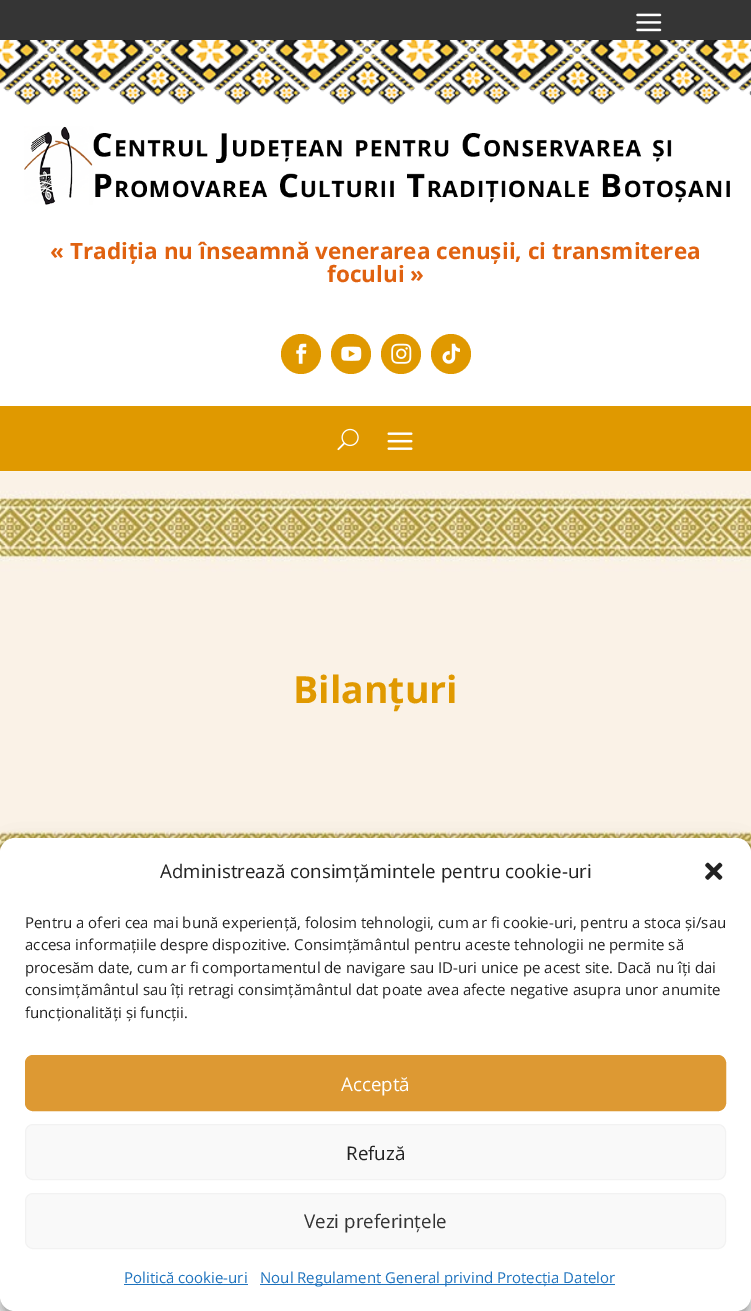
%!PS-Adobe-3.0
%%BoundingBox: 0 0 751 1311
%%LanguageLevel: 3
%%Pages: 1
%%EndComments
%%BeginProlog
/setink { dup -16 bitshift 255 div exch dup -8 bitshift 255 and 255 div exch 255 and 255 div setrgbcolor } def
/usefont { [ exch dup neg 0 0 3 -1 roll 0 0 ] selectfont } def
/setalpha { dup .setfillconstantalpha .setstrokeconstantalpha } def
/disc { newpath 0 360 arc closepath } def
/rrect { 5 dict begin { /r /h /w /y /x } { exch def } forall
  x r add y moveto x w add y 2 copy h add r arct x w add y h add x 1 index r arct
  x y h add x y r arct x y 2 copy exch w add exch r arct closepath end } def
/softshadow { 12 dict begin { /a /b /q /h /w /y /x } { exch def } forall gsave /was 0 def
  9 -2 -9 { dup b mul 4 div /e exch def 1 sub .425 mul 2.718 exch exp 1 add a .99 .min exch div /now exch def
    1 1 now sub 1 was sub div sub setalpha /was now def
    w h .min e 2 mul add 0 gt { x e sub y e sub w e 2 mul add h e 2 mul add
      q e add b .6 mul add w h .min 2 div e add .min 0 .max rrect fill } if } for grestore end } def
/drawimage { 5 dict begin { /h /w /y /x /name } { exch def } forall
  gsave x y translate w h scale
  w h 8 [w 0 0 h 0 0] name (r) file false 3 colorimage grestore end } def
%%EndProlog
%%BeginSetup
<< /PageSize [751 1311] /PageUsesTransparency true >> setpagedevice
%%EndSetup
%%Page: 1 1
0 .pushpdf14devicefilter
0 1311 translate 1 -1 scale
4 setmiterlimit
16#FFFFFF setink
0 0 751 1311 rectfill
16#353535 setink
0 0 751 40 rectfill
(img1.raw) 636 13 26 19 drawimage
(img2.raw) 0 40 751 65 drawimage
(img3.raw) 24 126 706 79 drawimage
/OpenSans-Bold 22.5 usefont
16#E06210 setink
50 259 moveto (« Tradiția nu înseamnă venerarea cenușii, ci transmiterea) show
327 282 moveto (focului ») show
16#E09900 setink
301 354 20 disc fill
(img4.raw) 296 343 11 21 drawimage
351 354 20 disc fill
(img5.raw) 341 346 21 15 drawimage
401 354 20 disc fill
(img6.raw) 391 343 21 21 drawimage
451 354 20 disc fill
(img7.raw) 442 343 18 21 drawimage
0 406 751 65 rectfill
(img8.raw) 337 428 22 23 drawimage
(img9.raw) 387 432 26 18 drawimage
(img10.raw) 0 471 751 382 drawimage
/OpenSans-Bold 37.5 usefont
293 703 moveto (Bilanțuri) show
16#000000 setink
0 845 751 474 15 4 0.23 softshadow
0 850 751 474 15 12.5 0.19 softshadow
16#FFFFFF setink
0 838 751 473 15 rrect fill
/OpenSans-Regular 18.75 usefont
16#222222 setink
160 878 moveto (Administrează consimțămintele pentru cookie-uri) show
(img11.raw) 705 862 18 18 drawimage
/OpenSans-Regular 15 usefont
[
    [(Pentru a oferi cea mai bună experiență, folosim tehnologii, cum ar fi cookie-uri, pentru a stoca și/sau) 25 928]
    [(accesa informațiile despre dispozitive. Consimțământul pentru aceste tehnologii ne permite să) 25 950]
    [(procesăm date, cum ar fi comportamentul de navigare sau ID-uri unice pe acest site. Dacă nu îți dai) 25 973]
    [(consimțământul sau îți retragi consimțământul dat poate avea afecte negative asupra unor anumite) 25 995]
    [(funcționalități și funcții.) 25 1018]
] { aload pop moveto show } forall
16#DD9933 setink
25.5 1055.5 700 55 7.5 rrect gsave fill grestore
stroke
/OpenSans-Regular 18.75 usefont
16#FFFFFF setink
341 1091 moveto (Acceptă) show
16#F9F9F9 setink
25.5 1124.5 700 55 7.5 rrect gsave fill grestore
16#F2F2F2 setink
stroke
16#222222 setink
346 1160 moveto (Refuză) show
16#F9F9F9 setink
25.5 1193.5 700 55 7.5 rrect gsave fill grestore
16#F2F2F2 setink
stroke
16#333333 setink
304 1228 moveto (Vezi preferințele) show
/OpenSans-Regular 15 usefont
16#1E73BE setink
124 1283 moveto (Politică cookie-uri) show
124 1284 124 1 rectfill
260 1284 355 1 rectfill
260 1283 moveto (Noul Regulament General privind Protecția Datelor) show
.poppdf14devicefilter showpage
%%EOF
